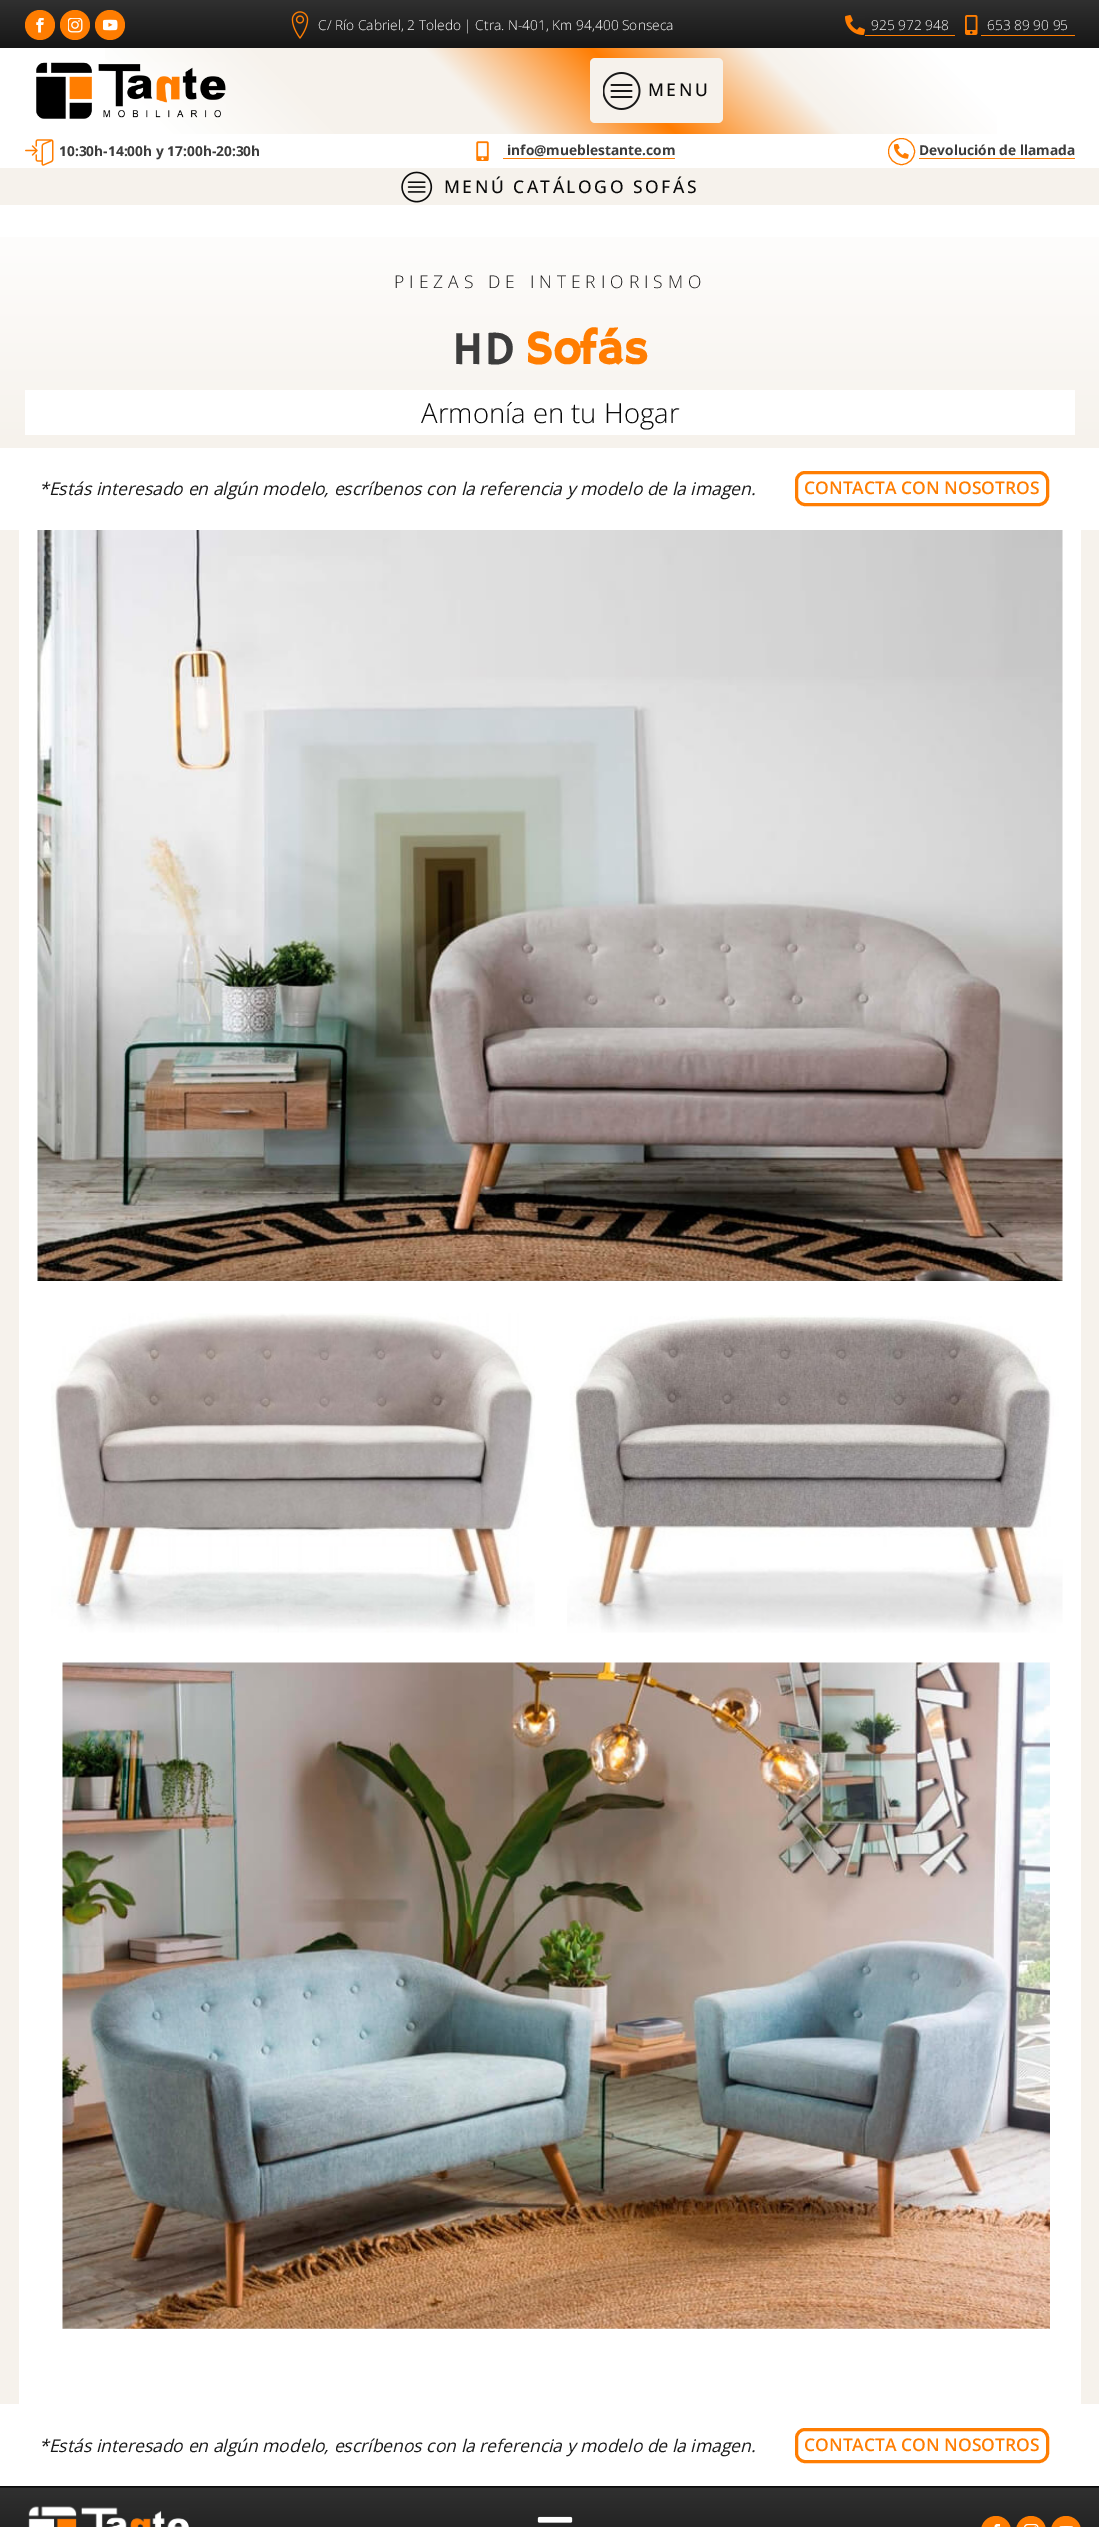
%!PS-Adobe-3.0
%%BoundingBox: 0 0 1099 2527
%%LanguageLevel: 3
%%Pages: 1
%%EndComments
%%BeginProlog
/setink { dup -16 bitshift 255 div exch dup -8 bitshift 255 and 255 div exch 255 and 255 div setrgbcolor } def
/usefont { [ exch dup neg 0 0 3 -1 roll 0 0 ] selectfont } def
/disc { newpath 0 360 arc closepath } def
/rrect { 5 dict begin { /r /h /w /y /x } { exch def } forall
  x r add y moveto x w add y 2 copy h add r arct x w add y h add x 1 index r arct
  x y h add x y r arct x y 2 copy exch w add exch r arct closepath end } def
/drawimage { 5 dict begin { /h /w /y /x /name } { exch def } forall
  gsave x y translate w h scale
  w h 8 [w 0 0 h 0 0] name (r) file false 3 colorimage grestore end } def
%%EndProlog
%%BeginSetup
<< /PageSize [1099 2527] >> setpagedevice
%%EndSetup
%%Page: 1 1
0 2527 translate 1 -1 scale
4 setmiterlimit
16#FFFFFF setink
0 0 1099 2527 rectfill
gsave 0 0 moveto 1099 0 lineto 1099 48 lineto 0 48 lineto closepath clip newpath
<< /ShadingType 2 /ColorSpace /DeviceRGB /Coords [550 0 550 48] /Extend [true true] /Function << /FunctionType 2 /Domain [0 1] /C0 [0.188 0.188 0.188] /C1 [0.086 0.086 0.086] /N 1 >> >> shfill grestore
16#FF7D01 setink
40 25 15 disc fill
(img1.raw) 36 18 8 15 drawimage
75 25 15 disc fill
(img2.raw) 68 18 15 15 drawimage
110 25 15 disc fill
(img3.raw) 103 19 15 12 drawimage
(img4.raw) 291 11 18 28 drawimage
/OpenSans-Light 13.75 usefont
16#FFFFFF setink
318 30 moveto (C/ Río Cabriel, 2 Toledo | Ctra. N-401, Km 94,400 Sonseca) show
(img5.raw) 845 15 20 20 drawimage
16#FF7D01 setink
865 35 90 1 rectfill
16#FFFFFF setink
871 30 moveto (925 972 948) show
(img6.raw) 965 15 13 20 drawimage
16#FF7D01 setink
981 35 94 1 rectfill
16#FFFFFF setink
987 30 moveto (653 89 90 95) show
gsave 105 48 moveto 997 48 lineto 997 134 lineto 105 134 lineto closepath clip newpath
<< /ShadingType 2 /ColorSpace /DeviceRGB /Coords [253 387 847 -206] /Extend [true true] /Function << /FunctionType 3 /Domain [0 1] /Functions [<< /FunctionType 2 /Domain [0 1] /C0 [1 1 1] /C1 [1 1 1] /N 1 >> << /FunctionType 2 /Domain [0 1] /C0 [1 1 1] /C1 [0.965 0.949 0.925] /N 1 >> << /FunctionType 2 /Domain [0 1] /C0 [0.965 0.949 0.925] /C1 [0.965 0.949 0.925] /N 1 >> << /FunctionType 2 /Domain [0 1] /C0 [0.965 0.949 0.925] /C1 [1 0.49 0.004] /N 1 >> << /FunctionType 2 /Domain [0 1] /C0 [1 0.49 0.004] /C1 [0.965 0.949 0.925] /N 1 >> << /FunctionType 2 /Domain [0 1] /C0 [0.965 0.949 0.925] /C1 [1 1 1] /N 1 >> << /FunctionType 2 /Domain [0 1] /C0 [1 1 1] /C1 [1 1 1] /N 1 >>] /Bounds [0.14 0.29 0.43 0.57 0.71 0.86] /Encode [0 1 0 1 0 1 0 1 0 1 0 1 0 1] >> >> shfill grestore
(img7.raw) 36 62 190 57 drawimage
16#F6F2EC setink
590 58 133 65 5 rrect fill
(img8.raw) 603 72 38 38 drawimage
/OpenSans-Medium 17.5 usefont
16#0A0A0A setink
648 96 moveto 2.5 0 (MENU) ashow
(img9.raw) 25 139 29 27 drawimage
/OpenSans-Bold 13.75 usefont
16#3C3C3C setink
59 156 moveto (10:30h-14:00h y 17:00h-20:30h) show
(img10.raw) 476 141 13 20 drawimage
16#FF7D01 setink
503 158 172 1 rectfill
16#3C3C3C setink
507 155 moveto (info@mueblestante.com) show
16#FF7D01 setink
901.5 151.5 13 disc stroke
(img11.raw) 894 144 15 15 drawimage
919 158 156 1 rectfill
16#3C3C3C setink
919 155 moveto (Devolución de llamada) show
16#F6F2EC setink
0 168 1099 37 rectfill
(img12.raw) 401 171 32 32 drawimage
/OpenSans-Medium 17.5 usefont
16#0A0A0A setink
444 193 moveto 2.5 0 (MENÚ CATÁLOGO SOFÁS) ashow
gsave 0 237 moveto 1099 237 lineto 1099 448 lineto 0 448 lineto closepath clip newpath
<< /ShadingType 2 /ColorSpace /DeviceRGB /Coords [550 205 550 448] /Extend [true true] /Function << /FunctionType 2 /Domain [0 1] /C0 [1 1 1] /C1 [0.965 0.949 0.925] /N 1 >> >> shfill grestore
/OpenSans-Light 17.5 usefont
16#191919 setink
394 288 moveto 5 0 (PIEZAS DE INTERIORISMO) ashow
/HammersmithOne-Regular 47.5 usefont
16#3C3C3C setink
452 364 moveto (HD) show
/HammersmithOne-Bold 47.5 usefont
16#FF7D01 setink
525 364 moveto (Sofás) show
16#FFFFFF setink
25 390 1050 45 rectfill
/OpenSans-Light 27.5 usefont
16#0A0A0A setink
421 423 moveto (Armonía en tu Hogar) show
/OpenSans-Italic 17.5 usefont
16#191919 setink
39 495 moveto (*Estás interesado en algún modelo, escríbenos con la referencia y modelo de la imagen.) show
16#FF7D01 setink
3 setlinewidth
796.5 472.5 251 32 8.5 rrect stroke
/OpenSans-SemiBold 17.5 usefont
804 494 moveto (CONTACTA CON NOSOTROS) show
16#F6F2EC setink
0 530 1099 1874 rectfill
16#FFFFFF setink
19 530 1062 1874 rectfill
(img13.raw) 37 530 1026 751 drawimage
(img14.raw) 51 1313 484 320 drawimage
(img15.raw) 567 1315 496 318 drawimage
(img16.raw) 62 1662 988 667 drawimage
/OpenSans-Italic 17.5 usefont
16#191919 setink
39 2452 moveto (*Estás interesado en algún modelo, escríbenos con la referencia y modelo de la imagen.) show
16#FF7D01 setink
796.5 2429.5 251 32 8.5 rrect stroke
/OpenSans-SemiBold 17.5 usefont
804 2451 moveto (CONTACTA CON NOSOTROS) show
gsave 0 2487 moveto 1099 2487 lineto 1099 2488 lineto 0 2488 lineto closepath clip newpath
<< /ShadingType 2 /ColorSpace /DeviceRGB /Coords [550 2401 550 2488] /Extend [true true] /Function << /FunctionType 2 /Domain [0 1] /C0 [0.188 0.188 0.188] /C1 [0.086 0.086 0.086] /N 1 >> >> shfill grestore
gsave 0 2488 moveto 1099 2488 lineto 1099 2527 lineto 0 2527 lineto closepath clip newpath
<< /ShadingType 2 /ColorSpace /DeviceRGB /Coords [550 2488 550 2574] /Extend [true true] /Function << /FunctionType 2 /Domain [0 1] /C0 [0.188 0.188 0.188] /C1 [0.086 0.086 0.086] /N 1 >> >> shfill grestore
16#0A0A0A setink
0 2486 1099 1 rectfill
(img17.raw) 28 2506 161 21 drawimage
(img18.raw) 537 2516 36 7 drawimage
16#FF7D01 setink
981 2516 30 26 15 rrect fill
(img19.raw) 994 2524 6 3 drawimage
1016 2516 30 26 15 rrect fill
(img20.raw) 1024 2524 15 3 drawimage
1051 2516 30 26 15 rrect fill
(img21.raw) 1059 2526 14 1 drawimage
showpage
%%EOF
